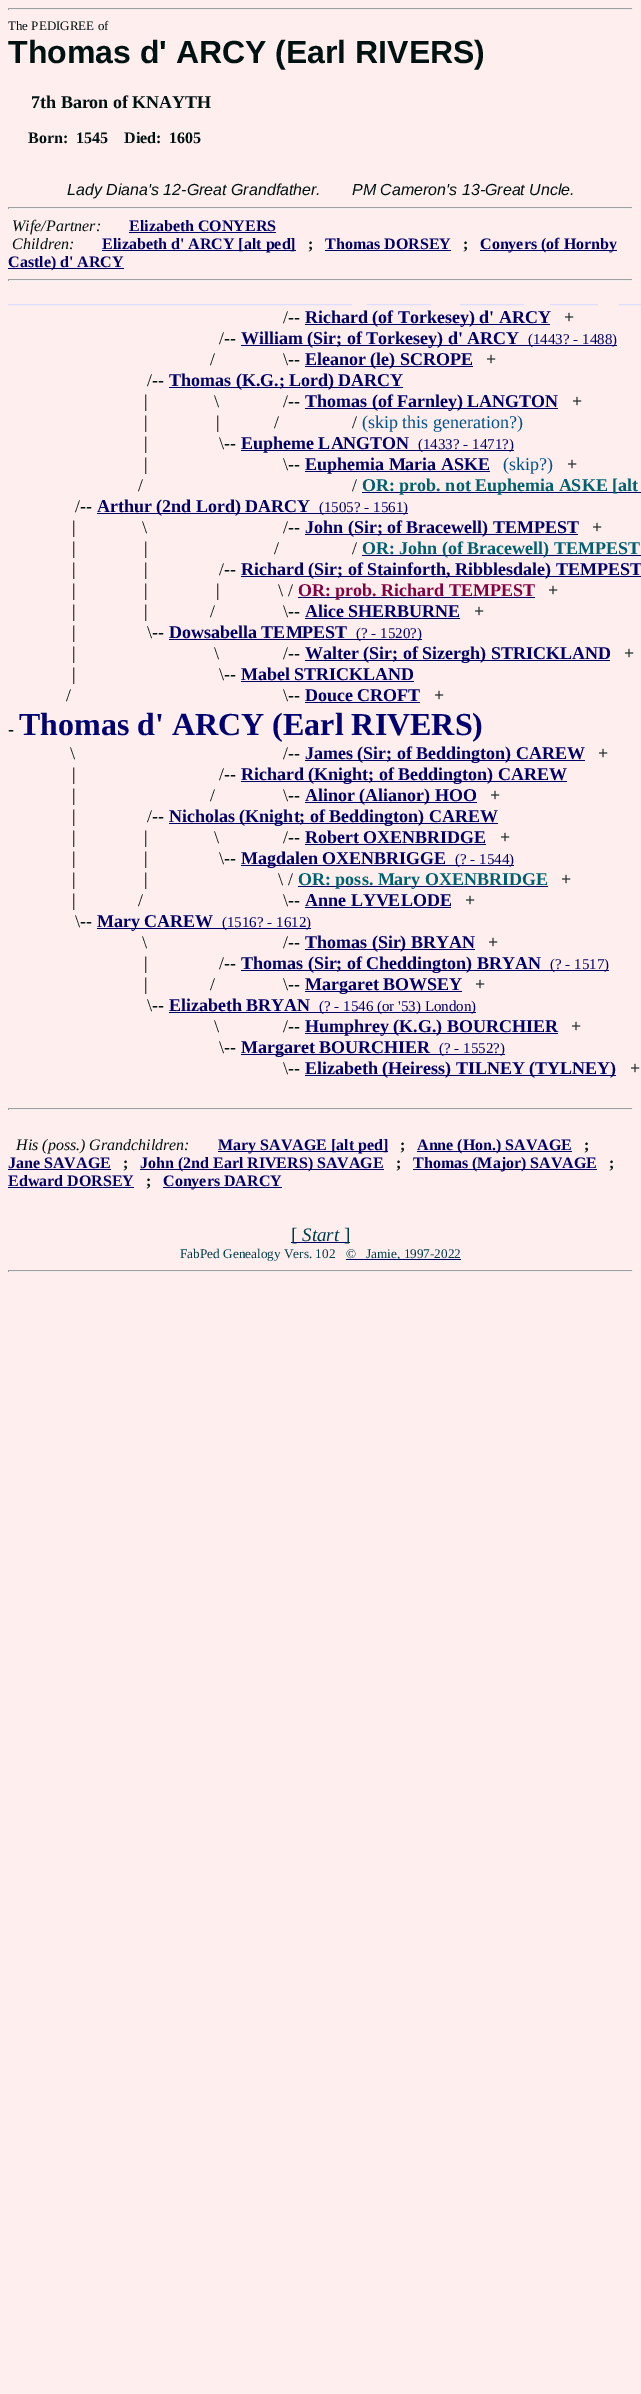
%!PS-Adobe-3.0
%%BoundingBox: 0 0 641 2394
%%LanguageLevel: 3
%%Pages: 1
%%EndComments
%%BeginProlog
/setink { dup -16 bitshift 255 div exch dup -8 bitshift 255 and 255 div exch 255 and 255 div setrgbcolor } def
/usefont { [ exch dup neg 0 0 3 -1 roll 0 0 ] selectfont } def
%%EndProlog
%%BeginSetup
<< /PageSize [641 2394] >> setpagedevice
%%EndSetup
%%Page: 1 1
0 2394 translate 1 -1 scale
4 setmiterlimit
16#FFEEEE setink
0 0 641 2394 rectfill
[
    [8 8 625 1 16#9F9F9F]
    [632 8 1 2 16#EEEEEE]
    [8 9 625 1 16#EEEEEE]
    [8 8 1 2 16#9F9F9F]
] { aload pop setink rectfill } forall
/LiberationSerif-Regular 13 usefont
16#001111 setink
8 30 moveto (The PEDIGREE of) show
/LiberationSans-Bold 32 usefont
8 63 moveto (Thomas d' ARCY \(Earl RIVERS\)) show
/LiberationSerif-Bold 18 usefont
31 108 moveto (7th Baron of KNAYTH) show
/LiberationSerif-Bold 16 usefont
[
    [(Born:) 28 143]
    [(1545) 76 143]
    [(Died:) 124 143]
    [(1605) 169 143]
] { aload pop moveto show } forall
/LiberationSans-Italic 16 usefont
67 195 moveto (Lady Diana's 12-Great Grandfather.       PM Cameron's 13-Great Uncle.) show
[
    [8 207 625 1 16#9F9F9F]
    [632 207 1 2 16#EEEEEE]
    [8 208 625 1 16#EEEEEE]
    [8 207 1 2 16#9F9F9F]
] { aload pop setink rectfill } forall
/LiberationSerif-Italic 16 usefont
16#001111 setink
12 231 moveto (Wife/Partner:) show
/LiberationSerif-Bold 16 usefont
16#000066 setink
129 231 moveto (Elizabeth CONYERS) show
129 232 147 1 rectfill
/LiberationSerif-Italic 16 usefont
16#001111 setink
12 249 moveto (Children:) show
16#000066 setink
102 250 194 1 rectfill
/LiberationSerif-Bold 16 usefont
102 249 moveto (Elizabeth d' ARCY [alt ped]) show
16#001111 setink
308 249 moveto (;) show
16#000066 setink
325 249 moveto (Thomas DORSEY) show
325 250 126 1 rectfill
16#001111 setink
463 249 moveto (;) show
16#000066 setink
480 250 137 1 rectfill
480 249 moveto (Conyers \(of Hornby) show
8 268 116 1 rectfill
8 267 moveto (Castle\) d' ARCY) show
[
    [8 279 625 1 16#9F9F9F]
    [632 279 1 2 16#EEEEEE]
    [8 280 625 1 16#EEEEEE]
    [8 279 1 2 16#9F9F9F]
] { aload pop setink rectfill } forall
16#DDDDFF setink
[
    [(___________________________________________) 8 303]
    [(________) 367 303]
    [(________) 460 303]
    [(______) 550 303]
    [(___) 619 303]
] { aload pop moveto show } forall
/LiberationSerif-Regular 18 usefont
16#001111 setink
283 323 moveto (/--) show
16#000066 setink
305 324 245 1 rectfill
/LiberationSerif-Bold 18 usefont
305 323 moveto (Richard \(of Torkesey\) d' ARCY) show
/LiberationSerif-Regular 18 usefont
16#001111 setink
564 323 moveto (+) show
219 344 moveto (/--) show
16#000066 setink
241 345 376 1 rectfill
/LiberationSerif-Bold 18 usefont
241 344 moveto (William \(Sir; of Torkesey\) d' ARCY) show
/LiberationSerif-Regular 15 usefont
528 344 moveto (\(1443? - 1488\)) show
/LiberationSerif-Regular 18 usefont
16#001111 setink
210 365 moveto (/) show
283 365 moveto (\\--) show
16#000066 setink
305 366 168 1 rectfill
/LiberationSerif-Bold 18 usefont
305 365 moveto (Eleanor \(le\) SCROPE) show
/LiberationSerif-Regular 18 usefont
16#001111 setink
486 365 moveto (+) show
147 386 moveto (/--) show
16#000066 setink
169 387 234 1 rectfill
/LiberationSerif-Bold 18 usefont
169 386 moveto (Thomas \(K.G.; Lord\) DARCY) show
/LiberationSerif-Regular 18 usefont
16#001111 setink
[
    [(|) 144 407]
    [(\\) 214 407]
    [(/--) 283 407]
] { aload pop moveto show } forall
16#000066 setink
305 408 253 1 rectfill
/LiberationSerif-Bold 18 usefont
305 407 moveto (Thomas \(of Farnley\) LANGTON) show
/LiberationSerif-Regular 18 usefont
16#001111 setink
[
    [(+) 572 407]
    [(|) 144 428]
    [(|) 216 428]
    [(/) 274 428]
    [(/) 352 428]
] { aload pop moveto show } forall
16#005088 setink
362 428 moveto (\(skip this generation?\)) show
16#001111 setink
144 449 moveto (|) show
219 449 moveto (\\--) show
16#000066 setink
241 450 273 1 rectfill
/LiberationSerif-Bold 18 usefont
241 449 moveto (Eupheme LANGTON) show
/LiberationSerif-Regular 15 usefont
418 449 moveto (\(1433? - 1471?\)) show
/LiberationSerif-Regular 18 usefont
16#001111 setink
144 470 moveto (|) show
283 470 moveto (\\--) show
16#000066 setink
305 471 185 1 rectfill
/LiberationSerif-Bold 18 usefont
305 470 moveto (Euphemia Maria ASKE) show
/LiberationSerif-Regular 18 usefont
16#005088 setink
503 470 moveto (\(skip?\)) show
16#001111 setink
[
    [(+) 567 470]
    [(/) 138 491]
    [(/) 352 491]
] { aload pop moveto show } forall
16#000066 setink
362 492 279 1 rectfill
/LiberationSerif-Bold 18 usefont
16#006070 setink
362 491 moveto (OR: prob. not Euphemia ASKE [alt) show
/LiberationSerif-Regular 18 usefont
16#001111 setink
75 512 moveto (/--) show
16#000066 setink
97 513 311 1 rectfill
/LiberationSerif-Bold 18 usefont
97 512 moveto (Arthur \(2nd Lord\) DARCY) show
/LiberationSerif-Regular 15 usefont
319 512 moveto (\(1505? - 1561\)) show
/LiberationSerif-Regular 18 usefont
16#001111 setink
[
    [(|) 72 533]
    [(\\) 142 533]
    [(/--) 283 533]
] { aload pop moveto show } forall
16#000066 setink
305 534 273 1 rectfill
/LiberationSerif-Bold 18 usefont
305 533 moveto (John \(Sir; of Bracewell\) TEMPEST) show
/LiberationSerif-Regular 18 usefont
16#001111 setink
[
    [(+) 592 533]
    [(|) 72 554]
    [(|) 144 554]
    [(/) 274 554]
    [(/) 352 554]
] { aload pop moveto show } forall
16#000066 setink
362 555 279 1 rectfill
/LiberationSerif-Bold 18 usefont
16#006070 setink
362 554 moveto (OR: John \(of Bracewell\) TEMPEST) show
/LiberationSerif-Regular 18 usefont
16#001111 setink
[
    [(|) 72 575]
    [(|) 144 575]
    [(/--) 219 575]
] { aload pop moveto show } forall
16#000066 setink
241 576 400 1 rectfill
/LiberationSerif-Bold 18 usefont
241 575 moveto (Richard \(Sir; of Stainforth, Ribblesdale\) TEMPEST) show
/LiberationSerif-Regular 18 usefont
16#001111 setink
[
    [(|) 72 596]
    [(|) 144 596]
    [(|) 216 596]
    [(\\ /) 278 596]
] { aload pop moveto show } forall
16#000066 setink
298 597 237 1 rectfill
/LiberationSerif-Bold 18 usefont
16#800040 setink
298 596 moveto (OR: prob. Richard TEMPEST) show
/LiberationSerif-Regular 18 usefont
16#001111 setink
[
    [(+) 548 596]
    [(|) 72 617]
    [(|) 144 617]
    [(/) 210 617]
    [(\\--) 283 617]
] { aload pop moveto show } forall
/LiberationSerif-Bold 18 usefont
16#000066 setink
305 617 moveto (Alice SHERBURNE) show
305 618 155 1 rectfill
/LiberationSerif-Regular 18 usefont
16#001111 setink
[
    [(+) 474 617]
    [(|) 72 638]
    [(\\--) 147 638]
] { aload pop moveto show } forall
/LiberationSerif-Bold 18 usefont
16#000066 setink
169 638 moveto (Dowsabella TEMPEST) show
169 639 253 1 rectfill
/LiberationSerif-Regular 15 usefont
356 638 moveto (\(? - 1520?\)) show
/LiberationSerif-Regular 18 usefont
16#001111 setink
[
    [(|) 72 659]
    [(\\) 214 659]
    [(/--) 283 659]
] { aload pop moveto show } forall
16#000066 setink
305 660 305 1 rectfill
/LiberationSerif-Bold 18 usefont
305 659 moveto (Walter \(Sir; of Sizergh\) STRICKLAND) show
/LiberationSerif-Regular 18 usefont
16#001111 setink
[
    [(+) 624 659]
    [(|) 72 680]
    [(\\--) 219 680]
] { aload pop moveto show } forall
/LiberationSerif-Bold 18 usefont
16#000066 setink
241 680 moveto (Mabel STRICKLAND) show
241 681 173 1 rectfill
/LiberationSerif-Regular 18 usefont
16#001111 setink
66 701 moveto (/) show
283 701 moveto (\\--) show
/LiberationSerif-Bold 18 usefont
16#000066 setink
305 701 moveto (Douce CROFT) show
305 702 115 1 rectfill
/LiberationSerif-Regular 18 usefont
16#001111 setink
434 701 moveto (+) show
8 735 moveto (-) show
/LiberationSerif-Bold 32 usefont
16#000070 setink
19 735 moveto (Thomas d' ARCY \(Earl RIVERS\)) show
/LiberationSerif-Regular 18 usefont
16#001111 setink
70 759 moveto (\\) show
283 759 moveto (/--) show
16#000066 setink
305 760 280 1 rectfill
/LiberationSerif-Bold 18 usefont
305 759 moveto (James \(Sir; of Beddington\) CAREW) show
/LiberationSerif-Regular 18 usefont
16#001111 setink
[
    [(+) 598 759]
    [(|) 72 780]
    [(/--) 219 780]
] { aload pop moveto show } forall
16#000066 setink
241 781 326 1 rectfill
/LiberationSerif-Bold 18 usefont
241 780 moveto (Richard \(Knight; of Beddington\) CAREW) show
/LiberationSerif-Regular 18 usefont
16#001111 setink
[
    [(|) 72 801]
    [(/) 210 801]
    [(\\--) 283 801]
] { aload pop moveto show } forall
16#000066 setink
305 802 172 1 rectfill
/LiberationSerif-Bold 18 usefont
305 801 moveto (Alinor \(Alianor\) HOO) show
/LiberationSerif-Regular 18 usefont
16#001111 setink
[
    [(+) 490 801]
    [(|) 72 822]
    [(/--) 147 822]
] { aload pop moveto show } forall
16#000066 setink
169 823 329 1 rectfill
/LiberationSerif-Bold 18 usefont
169 822 moveto (Nicholas \(Knight; of Beddington\) CAREW) show
/LiberationSerif-Regular 18 usefont
16#001111 setink
[
    [(|) 72 843]
    [(|) 144 843]
    [(\\) 214 843]
    [(/--) 283 843]
] { aload pop moveto show } forall
/LiberationSerif-Bold 18 usefont
16#000066 setink
305 843 moveto (Robert OXENBRIDGE) show
305 844 181 1 rectfill
/LiberationSerif-Regular 18 usefont
16#001111 setink
[
    [(+) 500 843]
    [(|) 72 864]
    [(|) 144 864]
    [(\\--) 219 864]
] { aload pop moveto show } forall
16#000066 setink
241 865 273 1 rectfill
/LiberationSerif-Bold 18 usefont
241 864 moveto (Magdalen OXENBRIGGE) show
/LiberationSerif-Regular 15 usefont
455 864 moveto (\(? - 1544\)) show
/LiberationSerif-Regular 18 usefont
16#001111 setink
[
    [(|) 72 885]
    [(|) 144 885]
    [(\\ /) 278 885]
] { aload pop moveto show } forall
16#000066 setink
298 886 250 1 rectfill
/LiberationSerif-Bold 18 usefont
16#006070 setink
298 885 moveto (OR: poss. Mary OXENBRIDGE) show
/LiberationSerif-Regular 18 usefont
16#001111 setink
[
    [(+) 561 885]
    [(|) 72 906]
    [(/) 138 906]
    [(\\--) 283 906]
] { aload pop moveto show } forall
/LiberationSerif-Bold 18 usefont
16#000066 setink
305 906 moveto (Anne LYVELODE) show
305 907 146 1 rectfill
/LiberationSerif-Regular 18 usefont
16#001111 setink
465 906 moveto (+) show
75 927 moveto (\\--) show
16#000066 setink
97 928 214 1 rectfill
/LiberationSerif-Bold 18 usefont
97 927 moveto (Mary CAREW) show
/LiberationSerif-Regular 15 usefont
222 927 moveto (\(1516? - 1612\)) show
/LiberationSerif-Regular 18 usefont
16#001111 setink
142 948 moveto (\\) show
283 948 moveto (/--) show
16#000066 setink
305 949 170 1 rectfill
/LiberationSerif-Bold 18 usefont
305 948 moveto (Thomas \(Sir\) BRYAN) show
/LiberationSerif-Regular 18 usefont
16#001111 setink
[
    [(+) 488 948]
    [(|) 144 969]
    [(/--) 219 969]
] { aload pop moveto show } forall
16#000066 setink
241 970 368 1 rectfill
/LiberationSerif-Bold 18 usefont
241 969 moveto (Thomas \(Sir; of Cheddington\) BRYAN) show
/LiberationSerif-Regular 15 usefont
550 969 moveto (\(? - 1517\)) show
/LiberationSerif-Regular 18 usefont
16#001111 setink
[
    [(|) 144 990]
    [(/) 210 990]
    [(\\--) 283 990]
] { aload pop moveto show } forall
16#000066 setink
305 991 157 1 rectfill
/LiberationSerif-Bold 18 usefont
305 990 moveto (Margaret BOWSEY) show
/LiberationSerif-Regular 18 usefont
16#001111 setink
475 990 moveto (+) show
147 1011 moveto (\\--) show
/LiberationSerif-Bold 18 usefont
16#000066 setink
169 1011 moveto (Elizabeth BRYAN) show
169 1012 307 1 rectfill
/LiberationSerif-Regular 15 usefont
319 1011 moveto (\(? - 1546 \(or '53\) London\)) show
/LiberationSerif-Regular 18 usefont
16#001111 setink
214 1032 moveto (\\) show
283 1032 moveto (/--) show
16#000066 setink
305 1033 253 1 rectfill
/LiberationSerif-Bold 18 usefont
305 1032 moveto (Humphrey \(K.G.\) BOURCHIER) show
/LiberationSerif-Regular 18 usefont
16#001111 setink
571 1032 moveto (+) show
219 1053 moveto (\\--) show
16#000066 setink
241 1054 189 1 rectfill
/LiberationSerif-Bold 18 usefont
241 1053 moveto (Margaret BOURCHIER) show
430 1054 75 1 rectfill
/LiberationSerif-Regular 15 usefont
439 1053 moveto (\(? - 1552?\)) show
/LiberationSerif-Regular 18 usefont
16#001111 setink
283 1074 moveto (\\--) show
16#000066 setink
305 1075 311 1 rectfill
/LiberationSerif-Bold 18 usefont
305 1074 moveto (Elizabeth \(Heiress\) TILNEY \(TYLNEY\)) show
/LiberationSerif-Regular 18 usefont
16#001111 setink
630 1074 moveto (+) show
[
    [8 1108 625 1 16#9F9F9F]
    [632 1108 1 2 16#EEEEEE]
    [8 1109 625 1 16#EEEEEE]
    [8 1108 1 2 16#9F9F9F]
] { aload pop setink rectfill } forall
/LiberationSerif-Italic 16 usefont
16#001111 setink
16 1150 moveto (His \(poss.\) Grandchildren:) show
16#000066 setink
218 1151 170 1 rectfill
/LiberationSerif-Bold 16 usefont
218 1150 moveto (Mary SAVAGE [alt ped]) show
16#001111 setink
400 1150 moveto (;) show
16#000066 setink
417 1151 155 1 rectfill
417 1150 moveto (Anne \(Hon.\) SAVAGE) show
16#001111 setink
584 1150 moveto (;) show
16#000066 setink
8 1168 moveto (Jane SAVAGE) show
8 1169 103 1 rectfill
16#001111 setink
123 1168 moveto (;) show
16#000066 setink
140 1169 244 1 rectfill
140 1168 moveto (John \(2nd Earl RIVERS\) SAVAGE) show
16#001111 setink
396 1168 moveto (;) show
16#000066 setink
413 1169 184 1 rectfill
413 1168 moveto (Thomas \(Major\) SAVAGE) show
16#001111 setink
609 1168 moveto (;) show
16#000066 setink
8 1186 moveto (Edward DORSEY) show
8 1187 126 1 rectfill
16#001111 setink
146 1186 moveto (;) show
16#000066 setink
163 1187 119 1 rectfill
163 1186 moveto (Conyers DARCY) show
291 1242 59 1 rectfill
/LiberationSerif-Regular 19 usefont
16#003C48 setink
291 1241 moveto ([) show
/LiberationSerif-Italic 19 usefont
302 1241 moveto (Start) show
/LiberationSerif-Regular 19 usefont
344 1241 moveto (]) show
/LiberationSerif-Regular 13.25 usefont
180 1258 moveto (FabPed Genealogy Vers. 102) show
16#000066 setink
346 1259 115 1 rectfill
16#003C48 setink
346 1258 moveto (©   Jamie, 1997-2022) show
[
    [8 1270 625 1 16#9F9F9F]
    [632 1270 1 2 16#EEEEEE]
    [8 1271 625 1 16#EEEEEE]
    [8 1270 1 2 16#9F9F9F]
] { aload pop setink rectfill } forall
showpage
%%EOF
